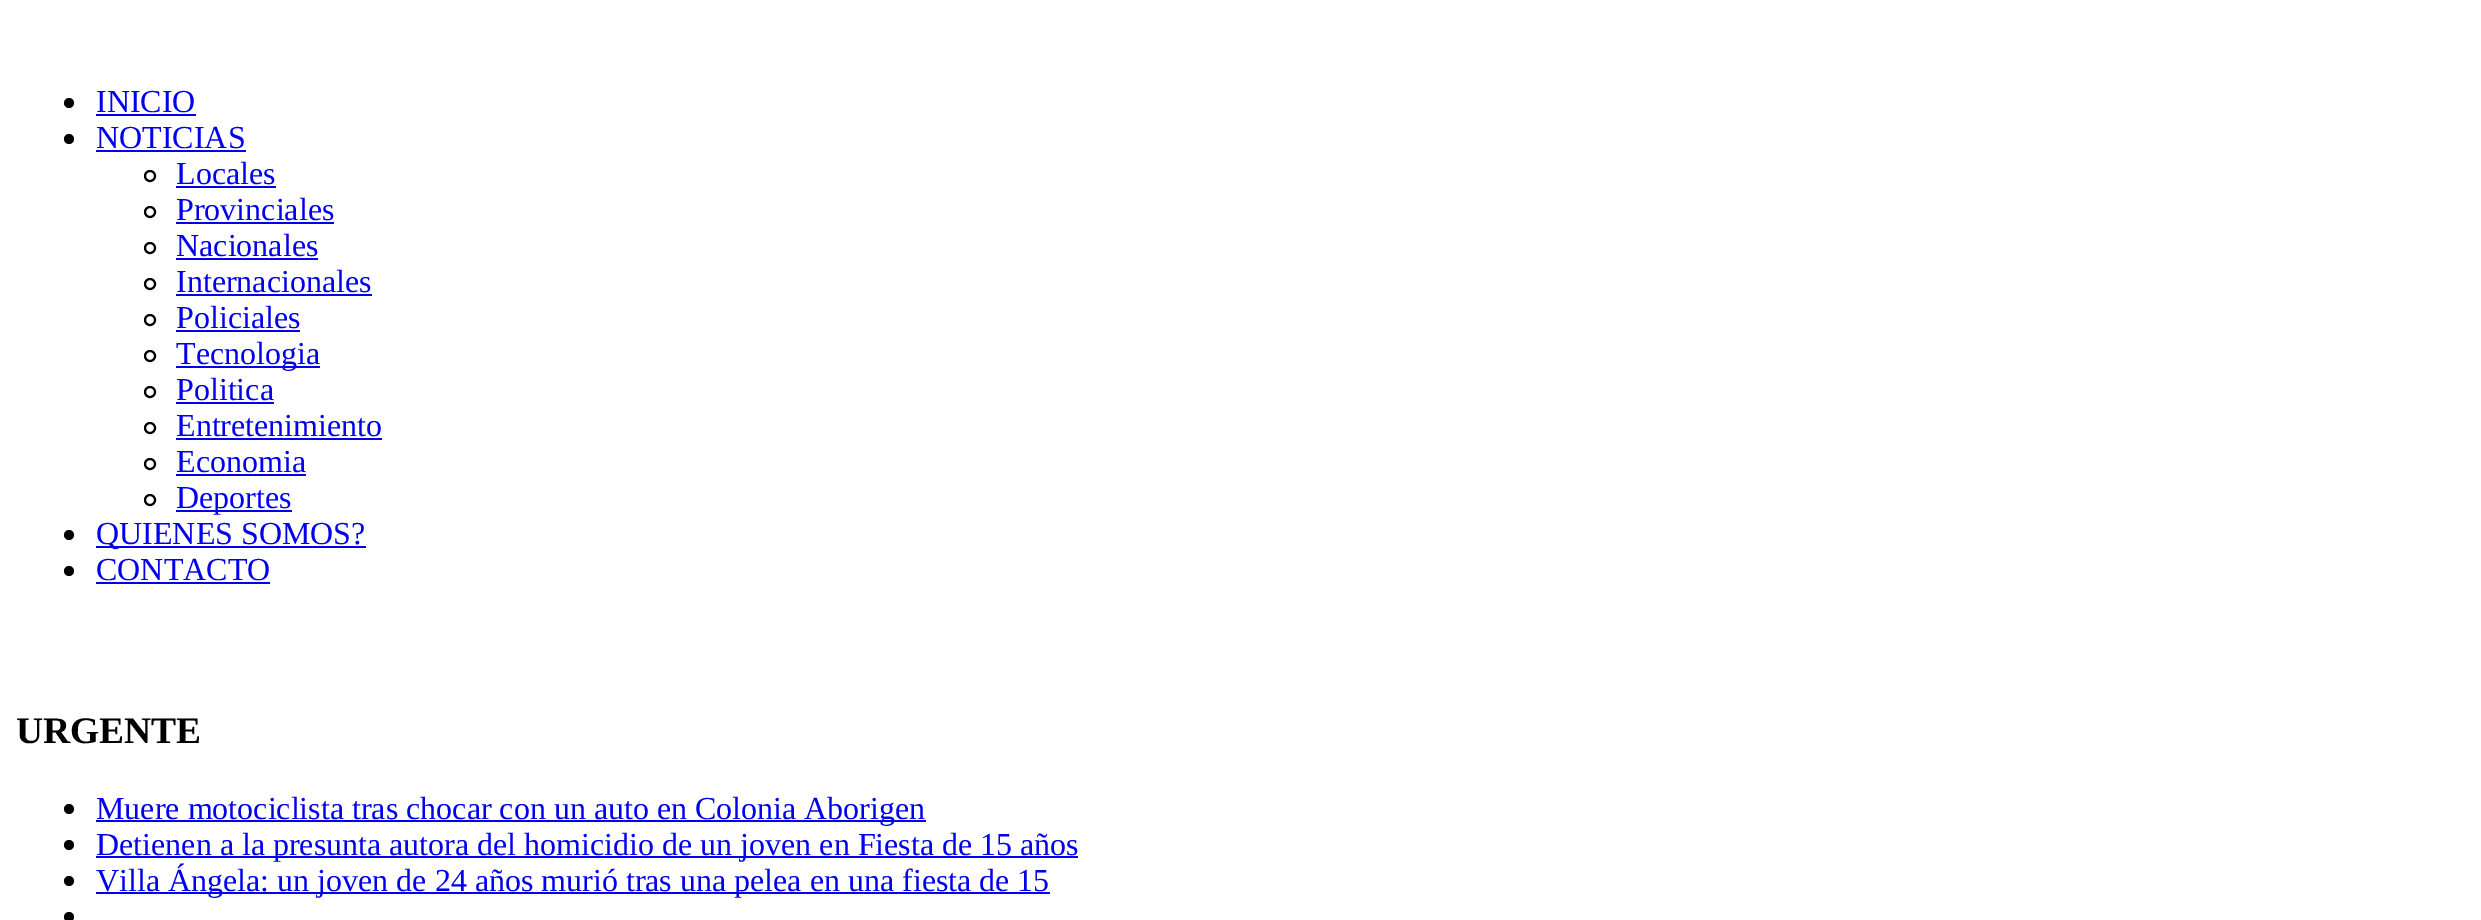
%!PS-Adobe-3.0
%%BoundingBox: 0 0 2481 920
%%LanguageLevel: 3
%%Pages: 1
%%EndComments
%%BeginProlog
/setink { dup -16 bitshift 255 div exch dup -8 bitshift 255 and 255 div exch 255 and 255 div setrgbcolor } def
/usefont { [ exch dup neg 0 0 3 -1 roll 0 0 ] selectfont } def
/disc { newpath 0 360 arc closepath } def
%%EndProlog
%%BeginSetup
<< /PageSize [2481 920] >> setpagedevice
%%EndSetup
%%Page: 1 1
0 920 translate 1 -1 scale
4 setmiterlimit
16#FFFFFF setink
0 0 2481 920 rectfill
16#000000 setink
69 103 5 disc fill
/LiberationSerif-Regular 32 usefont
16#0000EE setink
96 112 moveto (INICIO) show
96 114 100 2 rectfill
16#000000 setink
69 139 5 disc fill
16#0000EE setink
96 148 moveto (NOTICIAS) show
96 150 150 2 rectfill
16#000000 setink
2 setlinewidth
150 176 5 disc stroke
16#0000EE setink
176 184 moveto (Locales) show
176 186 100 2 rectfill
16#000000 setink
150 212 5 disc stroke
16#0000EE setink
176 220 moveto (Provinciales) show
176 222 158 2 rectfill
16#000000 setink
150 248 5 disc stroke
16#0000EE setink
176 256 moveto (Nacionales) show
176 258 142 2 rectfill
16#000000 setink
150 284 5 disc stroke
16#0000EE setink
176 292 moveto (Internacionales) show
176 294 196 2 rectfill
16#000000 setink
150 320 5 disc stroke
16#0000EE setink
176 328 moveto (Policiales) show
176 330 124 2 rectfill
16#000000 setink
150 356 5 disc stroke
16#0000EE setink
176 366 144 2 rectfill
176 364 moveto (Tecnologia) show
16#000000 setink
150 392 5 disc stroke
16#0000EE setink
176 400 moveto (Politica) show
176 402 98 2 rectfill
16#000000 setink
150 428 5 disc stroke
16#0000EE setink
176 436 moveto (Entretenimiento) show
176 438 206 2 rectfill
16#000000 setink
150 464 5 disc stroke
16#0000EE setink
176 472 moveto (Economia) show
176 474 130 2 rectfill
16#000000 setink
150 500 5 disc stroke
16#0000EE setink
176 510 116 2 rectfill
176 508 moveto (Deportes) show
16#000000 setink
69 535 5 disc fill
16#0000EE setink
96 546 270 2 rectfill
96 544 moveto (QUIENES SOMOS?) show
16#000000 setink
69 571 5 disc fill
16#0000EE setink
96 580 moveto (CONTACTO) show
96 582 174 2 rectfill
/LiberationSerif-Bold 37.5 usefont
16#000000 setink
16 743 moveto (URGENTE) show
69 809 5 disc fill
16#0000EE setink
96 820 830 2 rectfill
/LiberationSerif-Regular 32 usefont
96 819 moveto (Muere motociclista tras chocar con un auto en Colonia Aborigen) show
16#000000 setink
69 845 5 disc fill
16#0000EE setink
96 856 982 2 rectfill
96 855 moveto (Detienen a la presunta autora del homicidio de un joven en Fiesta de 15 años) show
16#000000 setink
69 881 5 disc fill
16#0000EE setink
96 892 954 2 rectfill
96 891 moveto (Villa Ángela: un joven de 24 años murió tras una pelea en una fiesta de 15) show
16#000000 setink
69 917 5 disc fill
showpage
%%EOF
